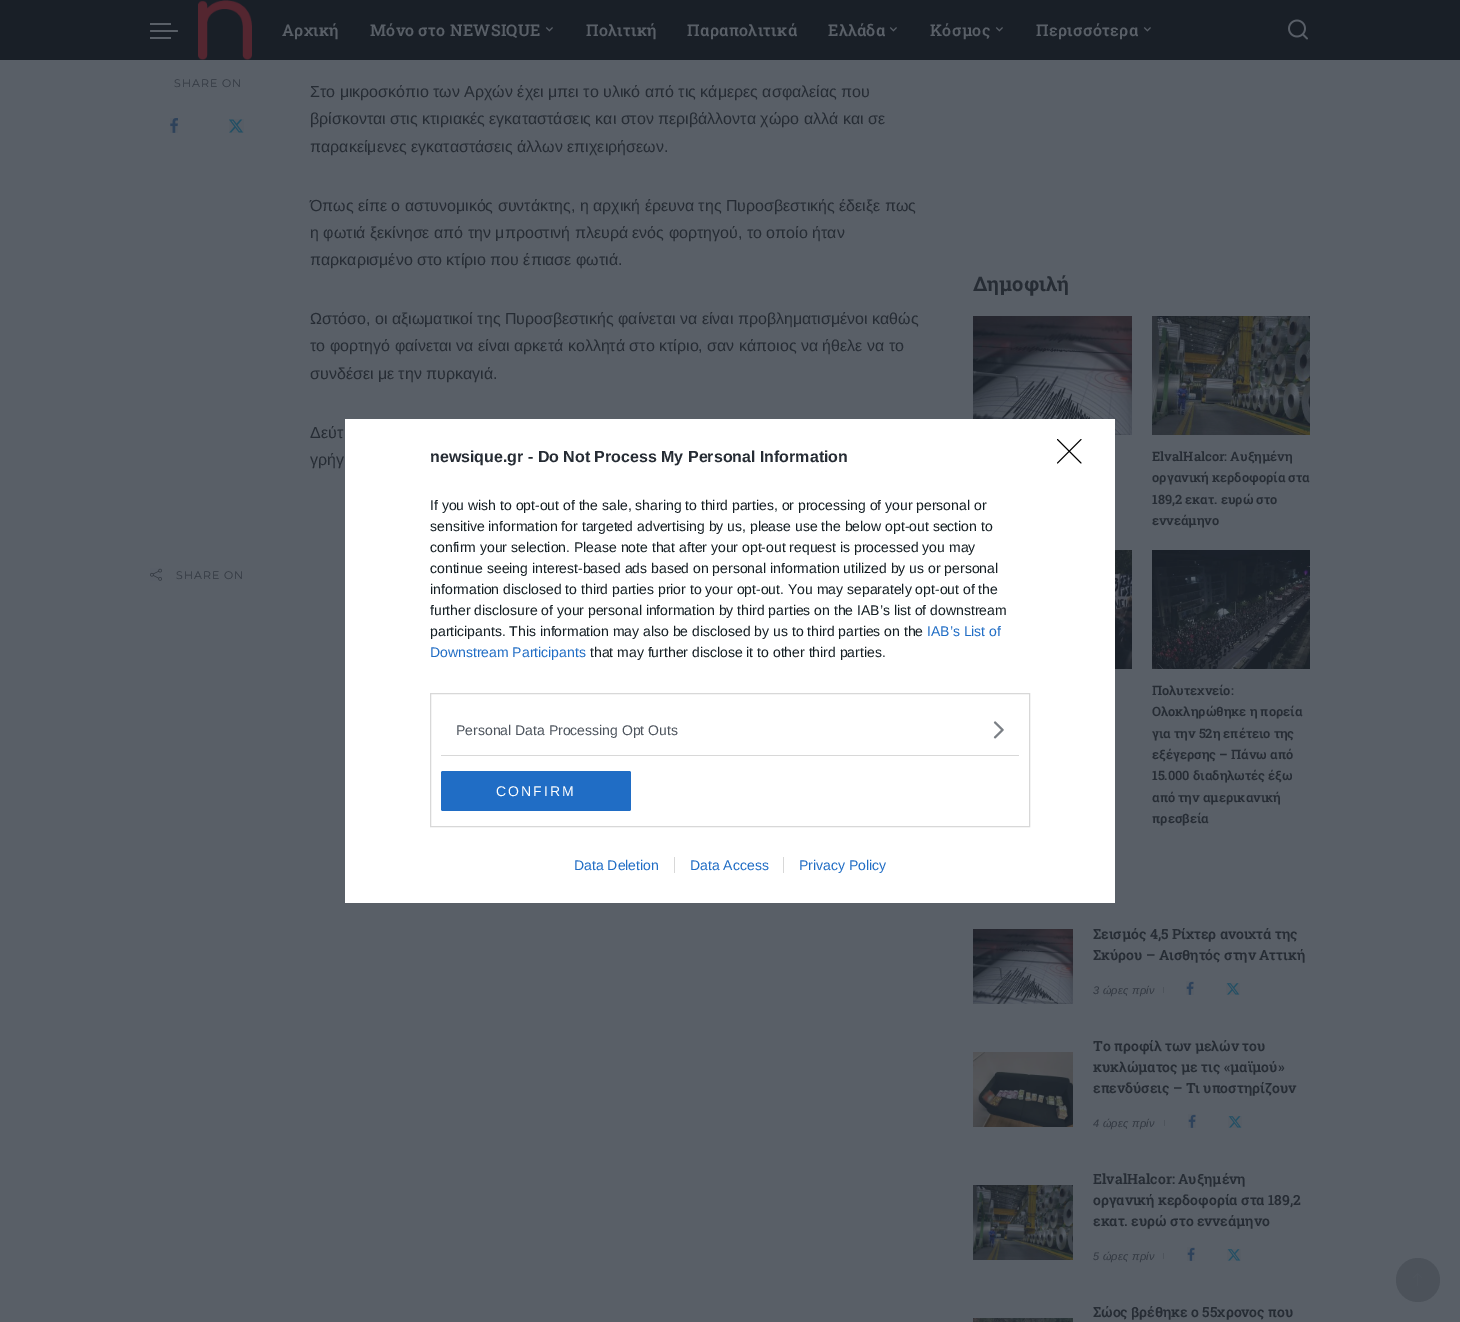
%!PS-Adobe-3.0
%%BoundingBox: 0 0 1460 1322
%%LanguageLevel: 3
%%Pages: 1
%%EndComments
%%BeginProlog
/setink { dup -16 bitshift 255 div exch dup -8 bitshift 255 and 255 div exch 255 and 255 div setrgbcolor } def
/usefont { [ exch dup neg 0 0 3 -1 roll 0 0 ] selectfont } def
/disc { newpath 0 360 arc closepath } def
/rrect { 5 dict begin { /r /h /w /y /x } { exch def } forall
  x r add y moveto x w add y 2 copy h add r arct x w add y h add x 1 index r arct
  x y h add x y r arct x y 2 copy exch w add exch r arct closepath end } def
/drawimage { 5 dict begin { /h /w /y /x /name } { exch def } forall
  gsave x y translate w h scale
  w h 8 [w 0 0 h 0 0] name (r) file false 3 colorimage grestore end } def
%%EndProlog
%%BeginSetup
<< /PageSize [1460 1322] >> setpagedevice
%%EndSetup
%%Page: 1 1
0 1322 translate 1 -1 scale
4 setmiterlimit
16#595F67 setink
0 0 1460 1322 rectfill
16#191F27 setink
0 0 1460 60 rectfill
16#595F67 setink
150 30 28 2 1 rrect fill
150 23 21 2 rectfill
150 37 21 2 rectfill
(img1.raw) 198 0 54 60 drawimage
/RobotoSlab-SemiBold 16 usefont
282 36 moveto 0.3 0 (Αρχική) ashow
370 36 moveto 0.3 0 (Μόνο στο NEWSIQUE) ashow
(img2.raw) 545 27 8 5 drawimage
586 36 moveto 0.3 0 (Πολιτική) ashow
687 36 moveto 0.3 0 (Παραπολιτικά) ashow
828 36 moveto 0.3 0 (Ελλάδα) ashow
(img2.raw) 889 27 8 5 drawimage
930 36 moveto 0.3 0 (Κόσμος) ashow
(img2.raw) 995 27 8 5 drawimage
1036 36 moveto 0.3 0 (Περισσότερα) ashow
(img2.raw) 1143 27 8 5 drawimage
(img3.raw) 1288 19 20 21 drawimage
/Montserrat-Regular 11 usefont
16#323841 setink
174 87 moveto 1 0 (SHARE ON) ashow
(img4.raw) 170 118 8 15 drawimage
(img5.raw) 229 119 15 14 drawimage
/LiberationSans-Regular 16 usefont
16#262C34 setink
[
    [(Στο μικροσκόπιο των Αρχών έχει μπει το υλικό από τις κάμερες ασφαλείας που) 310 97]
    [(βρίσκονται στις κτιριακές εγκαταστάσεις και στον περιβάλλοντα χώρο αλλά και σε) 310 124]
    [(παρακείμενες εγκαταστάσεις άλλων επιχειρήσεων.) 310 152]
    [(Όπως είπε ο αστυνομικός συντάκτης, η αρχική έρευνα της Πυροσβεστικής έδειξε πως) 310 211]
    [(η φωτιά ξεκίνησε από την μπροστινή πλευρά ενός φορτηγού, το οποίο ήταν) 310 238]
    [(παρκαρισμένο στο κτίριο που έπιασε φωτιά.) 310 265]
    [(Ωστόσο, οι αξιωματικοί της Πυροσβεστικής φαίνεται να είναι προβληματισμένοι καθώς) 310 324]
    [(το φορτηγό φαίνεται να είναι αρκετά κολλητά στο κτίριο, σαν κάποιος να ήθελε να το) 310 351]
    [(συνδέσει με την πυρκαγιά.) 310 379]
    [(Δεύτ) 310 438]
    [(γρήγ) 310 465]
] { aload pop moveto show } forall
(img6.raw) 150 568 12 13 drawimage
/Montserrat-Regular 11 usefont
16#323841 setink
176 579 moveto 1 0 (SHARE ON) ashow
/RobotoSlab-Bold 20 usefont
16#262C34 setink
973 291 moveto (Δημοφιλή) show
(img7.raw) 973 316 159 119 drawimage
(img8.raw) 1152 316 158 119 drawimage
/RobotoSlab-SemiBold 12.9 usefont
[
    [(ΕlvalHalcor: Αυξημένη) 1152 461]
    [(οργανική κερδοφορία στα) 1152 482]
    [(189,2 εκατ. ευρώ στο) 1152 504]
    [(εννεάμηνο) 1152 525]
] { aload pop moveto show } forall
(img9.raw) 1115 550 17 119 drawimage
(img10.raw) 1152 550 158 119 drawimage
[
    [(Πολυτεχνείο:) 1152 695]
    [(Ολοκληρώθηκε η πορεία) 1152 716]
    [(για την 52η επέτειο της) 1152 738]
    [(εξέγερσης – Πάνω από) 1152 759]
    [(15.000 διαδηλωτές έξω) 1152 780]
    [(από την αμερικανική) 1152 802]
    [(πρεσβεία) 1152 823]
] { aload pop moveto show } forall
(img11.raw) 973 929 100 75 drawimage
/RobotoSlab-SemiBold 14 usefont
1093 939 moveto (Σεισμός 4,5 Ρίχτερ ανοιχτά της) show
1093 960 moveto (Σκύρου – Αισθητός στην Αττική) show
/LiberationSans-Italic 11 usefont
16#323841 setink
1093 994 moveto 0.25 0 (3 ώρες πρίν) ashow
16#4D535B setink
1163 987 1 6 rectfill
(img12.raw) 1186 981 8 14 drawimage
(img13.raw) 1226 983 14 12 drawimage
(img14.raw) 973 1052 100 75 drawimage
/RobotoSlab-SemiBold 14 usefont
16#262C34 setink
[
    [(Το προφίλ των μελών του) 1093 1051]
    [(κυκλώματος με τις «μαϊμού») 1093 1072]
    [(επενδύσεις – Τι υποστηρίζουν) 1093 1093]
] { aload pop moveto show } forall
/LiberationSans-Italic 11 usefont
16#323841 setink
1093 1127 moveto 0.25 0 (4 ώρες πρίν) ashow
16#4D535B setink
1164 1120 1 6 rectfill
(img12.raw) 1188 1114 8 14 drawimage
(img13.raw) 1228 1116 14 12 drawimage
(img15.raw) 973 1185 100 75 drawimage
/RobotoSlab-SemiBold 14 usefont
16#262C34 setink
[
    [(ΕlvalHalcor: Αυξημένη) 1093 1184]
    [(οργανική κερδοφορία στα 189,2) 1093 1205]
    [(εκατ. ευρώ στο εννεάμηνο) 1093 1226]
] { aload pop moveto show } forall
/LiberationSans-Italic 11 usefont
16#323841 setink
1093 1260 moveto 0.25 0 (5 ώρες πρίν) ashow
16#4D535B setink
1163 1253 1 6 rectfill
(img12.raw) 1187 1247 8 14 drawimage
(img13.raw) 1227 1249 14 12 drawimage
(img16.raw) 973 1318 100 4 drawimage
/RobotoSlab-SemiBold 14 usefont
16#262C34 setink
1093 1317 moveto (Σώος βρέθηκε ο 55χρονος που) show
16#FFFFFF setink
345 419 770 484 rectfill
/LiberationSans-Bold 16 usefont
16#262C34 setink
430 462 moveto (newsique.gr - Do Not Process My Personal Information) show
/LiberationSans-Regular 14 usefont
16#141E23 setink
[
    [(If you wish to opt-out of the sale, sharing to third parties, or processing of your personal or) 430 510]
    [(sensitive information for targeted advertising by us, please use the below opt-out section to) 430 531]
    [(confirm your selection. Please note that after your opt-out request is processed you may) 430 552]
    [(continue seeing interest-based ads based on personal information utilized by us or personal) 430 573]
    [(information disclosed to third parties prior to your opt-out. You may separately opt-out of the) 430 594]
    [(further disclosure of your personal information by third parties on the IAB’s list of downstream) 430 615]
    [(participants. This information may also be disclosed by us to third parties on the) 430 636]
] { aload pop moveto show } forall
16#206DC5 setink
927 636 moveto (IAB’s List of) show
430 657 moveto (Downstream Participants) show
16#141E23 setink
590 657 moveto (that may further disclose it to other third parties.) show
16#D8D8D8 setink
430.5 693.5 599 133 rectstroke
441 755 578 1 rectfill
16#4D545D setink
456 735 moveto (Personal Data Processing Opt Outs) show
(img17.raw) 993 721 11 18 drawimage
16#206DC5 setink
441 771 190 40 2 rrect fill
16#FFFFFF setink
496 796 moveto 2 0 (CONFIRM) ashow
16#000000 setink
1 setlinecap
1 setlinejoin
1057.5 439.5 moveto 1081 463 lineto 1081 439.5 moveto 1057.5 463 lineto stroke
16#206DC5 setink
574 870 moveto (Data Deletion) show
690 870 moveto (Data Access) show
16#D8D8D8 setink
674 857 1 16 rectfill
16#206DC5 setink
799 870 moveto (Privacy Policy) show
16#D8D8D8 setink
783 857 1 16 rectfill
16#4C525A setink
1418 1280 22 disc fill
(img18.raw) 1413 1273 9 13 drawimage
showpage
%%EOF
